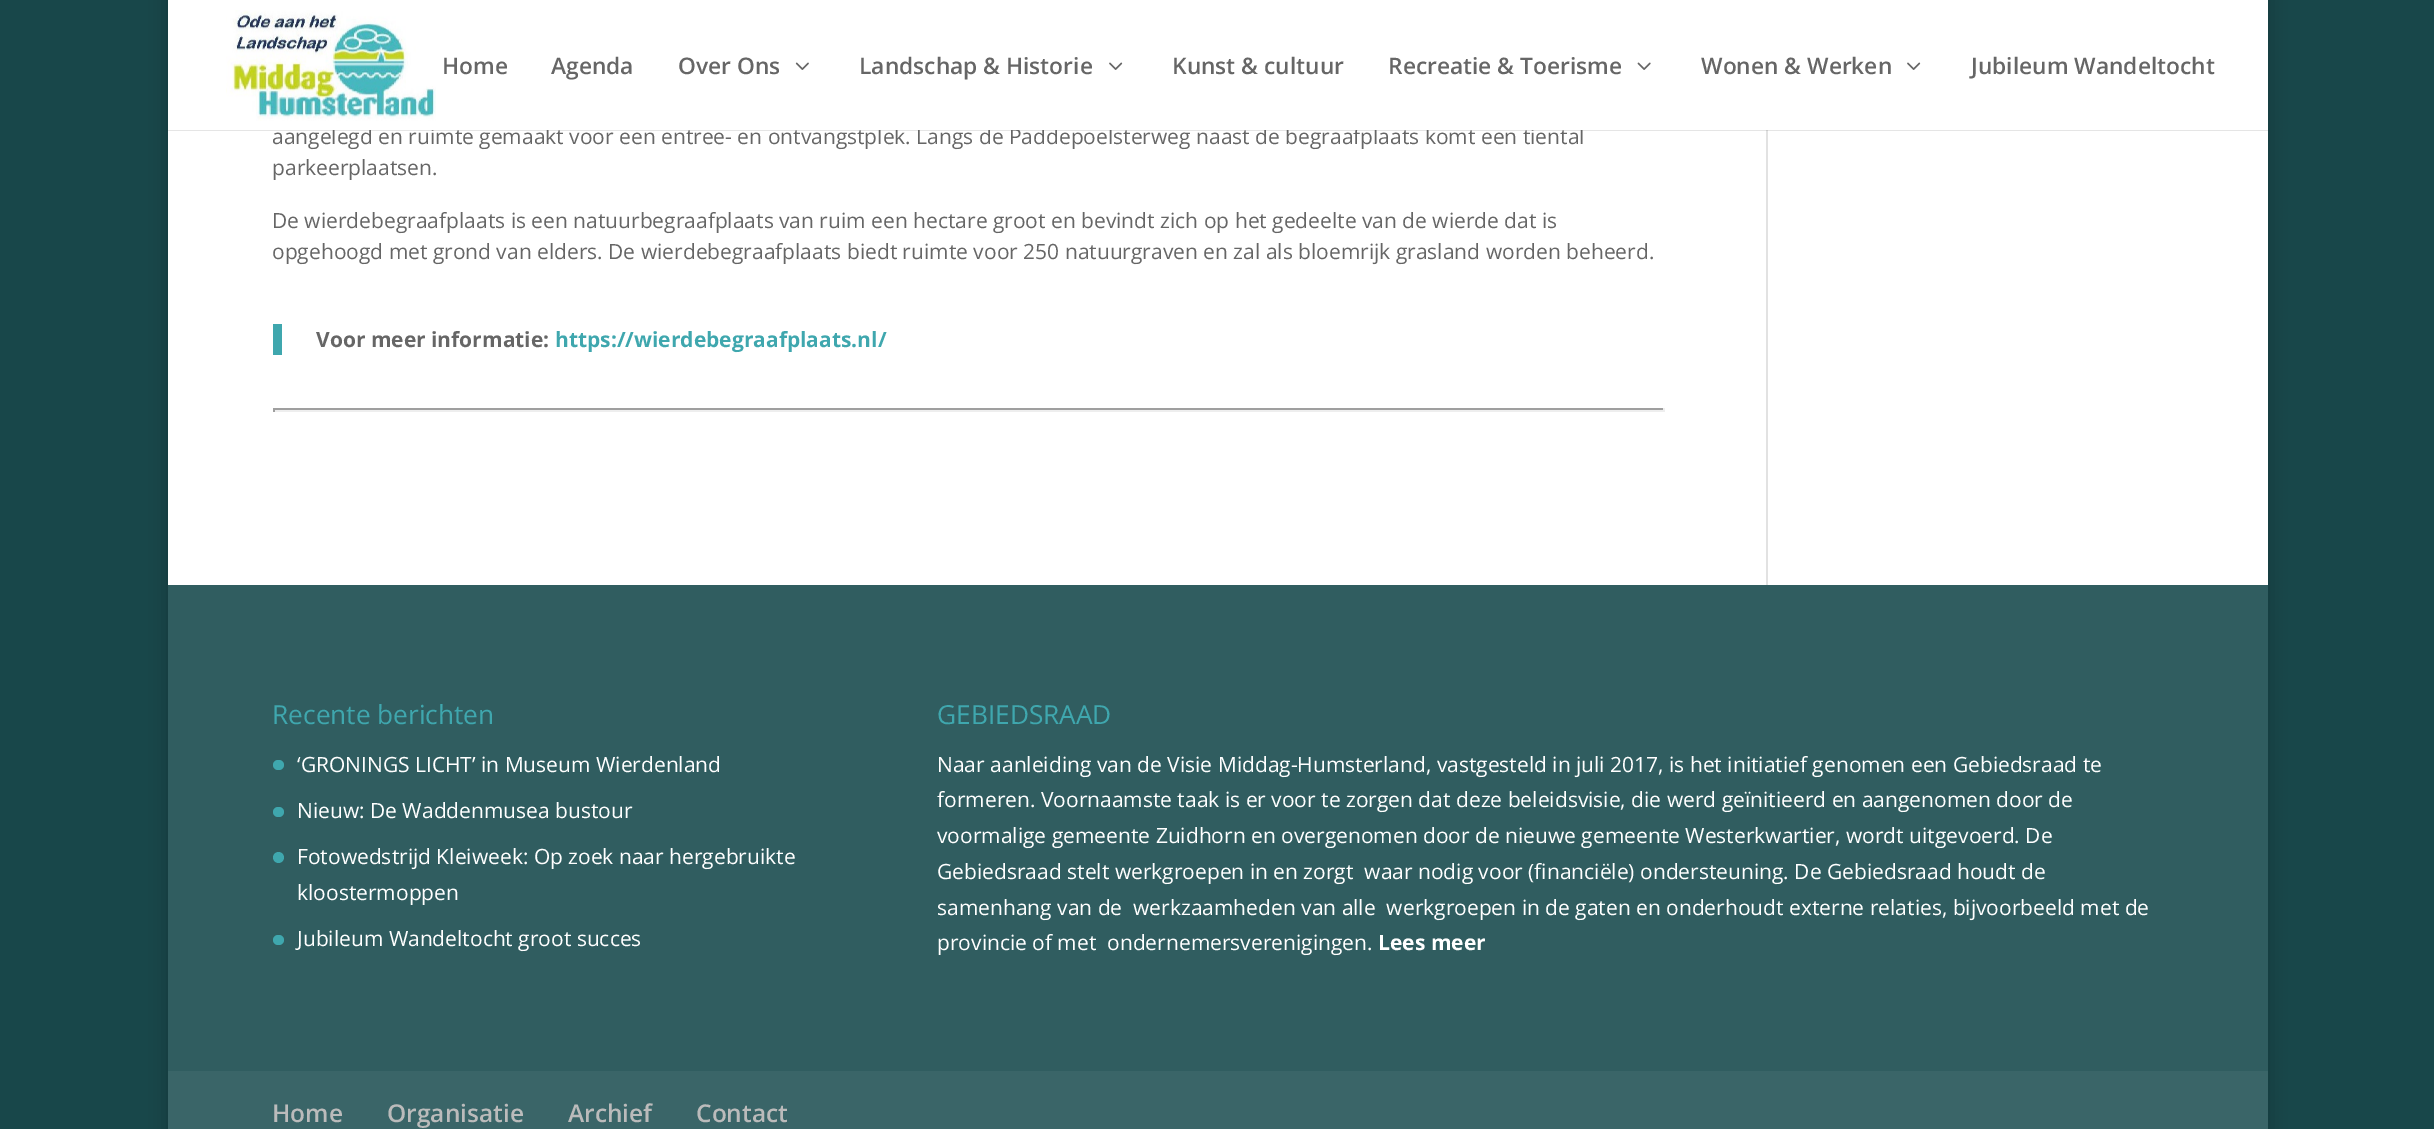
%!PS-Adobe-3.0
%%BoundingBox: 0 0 2434 1129
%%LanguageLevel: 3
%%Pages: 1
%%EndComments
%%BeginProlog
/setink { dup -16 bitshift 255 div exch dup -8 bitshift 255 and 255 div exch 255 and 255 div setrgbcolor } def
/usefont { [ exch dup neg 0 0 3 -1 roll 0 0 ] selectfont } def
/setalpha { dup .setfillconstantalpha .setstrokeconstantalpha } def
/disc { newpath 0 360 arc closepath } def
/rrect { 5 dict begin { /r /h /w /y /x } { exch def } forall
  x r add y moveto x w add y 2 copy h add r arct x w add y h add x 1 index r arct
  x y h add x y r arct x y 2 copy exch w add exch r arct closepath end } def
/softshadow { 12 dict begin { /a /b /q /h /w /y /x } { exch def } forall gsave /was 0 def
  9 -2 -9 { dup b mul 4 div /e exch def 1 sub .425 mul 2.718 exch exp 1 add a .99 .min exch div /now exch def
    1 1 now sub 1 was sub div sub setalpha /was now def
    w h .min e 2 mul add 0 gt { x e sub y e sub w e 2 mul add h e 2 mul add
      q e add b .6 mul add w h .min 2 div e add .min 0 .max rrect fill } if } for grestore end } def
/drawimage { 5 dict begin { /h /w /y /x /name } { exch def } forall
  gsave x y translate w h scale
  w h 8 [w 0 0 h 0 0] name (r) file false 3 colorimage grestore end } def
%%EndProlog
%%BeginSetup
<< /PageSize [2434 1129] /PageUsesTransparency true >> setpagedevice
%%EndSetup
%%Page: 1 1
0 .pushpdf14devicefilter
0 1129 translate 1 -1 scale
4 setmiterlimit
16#18474A setink
0 0 2434 1129 rectfill
16#000000 setink
168 -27 2100 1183 0 9 0.2 softshadow
[
    [168 130 2100 455 16#FFFFFF]
    [1766 130 2 455 16#E2E2E2]
] { aload pop setink rectfill } forall
0.1 setalpha
[
    [168 130 2100 1 16#000000]
] { aload pop setink rectfill } forall
/OpenSans-Regular 21 usefont
1 setalpha
16#666666 setink
272 144 moveto (aangelegd en ruimte gemaakt voor een entree- en ontvangstplek. Langs de Paddepoelsterweg naast de begraafplaats komt een tiental) show
16#FFFFFF setink
168 0 2100 130 rectfill
(img1.raw) 226 10 210 111 drawimage
/OpenSans-SemiBold 22.75 usefont
16#666666 setink
[
    [(Home) 442 74]
    [(Agenda) 551 74]
    [(Over Ons) 678 74]
] { aload pop moveto show } forall
(img2.raw) 795 62 14 8 drawimage
859 74 moveto (Landschap & Historie) show
(img3.raw) 1109 62 14 8 drawimage
1172 74 moveto (Kunst & cultuur) show
1388 74 moveto (Recreatie & Toerisme) show
(img4.raw) 1637 62 14 8 drawimage
1701 74 moveto (Wonen & Werken) show
(img3.raw) 1907 62 14 8 drawimage
1971 74 moveto (Jubileum Wandeltocht) show
/OpenSans-Regular 21 usefont
[
    [(parkeerplaatsen.) 272 175]
    [(De wierdebegraafplaats is een natuurbegraafplaats van ruim een hectare groot en bevindt zich op het gedeelte van de wierde dat is) 272 228]
    [(opgehoogd met grond van elders. De wierdebegraafplaats biedt ruimte voor 250 natuurgraven en zal als bloemrijk grasland worden beheerd.) 272 259]
] { aload pop moveto show } forall
16#3FA7AE setink
273 324 9 31 rectfill
/OpenSans-Bold 21 usefont
16#666666 setink
316 347 moveto (Voor meer informatie:) show
16#3FA7AE setink
555 347 moveto (https://wierdebegraafplaats.nl/) show
[
    [273 408 1391 2 16#9F9F9F]
    [1663 408 2 4 16#EEEEEE]
    [273 410 1391 2 16#EEEEEE]
    [273 408 2 4 16#9F9F9F]
    [168 585 2100 486 16#305D60]
] { aload pop setink rectfill } forall
/OpenSans-Regular 26.25 usefont
16#3FA7AE setink
272 724 moveto (Recente berichten) show
273 760 11 10 5 rrect fill
/OpenSans-Regular 21 usefont
16#FFFFFF setink
297 772 moveto (‘GRONINGS LICHT’ in Museum Wierdenland) show
16#3FA7AE setink
273 807 11 10 5 rrect fill
16#FFFFFF setink
297 818 moveto (Nieuw: De Waddenmusea bustour) show
16#3FA7AE setink
278.5 857.5 5.5 disc fill
16#FFFFFF setink
297 864 moveto (Fotowedstrijd Kleiweek: Op zoek naar hergebruikte) show
297 900 moveto (kloostermoppen) show
16#3FA7AE setink
273 935 11 10 5 rrect fill
16#FFFFFF setink
297 946 moveto (Jubileum Wandeltocht groot succes) show
/OpenSans-Regular 26.25 usefont
16#3FA7AE setink
937 724 moveto (GEBIEDSRAAD) show
/OpenSans-Regular 21 usefont
16#FFFFFF setink
[
    [(Naar aanleiding van de Visie Middag-Humsterland, vastgesteld in juli 2017, is het initiatief genomen een Gebiedsraad te) 937 772]
    [(formeren. Voornaamste taak is er voor te zorgen dat deze beleidsvisie, die werd geïnitieerd en aangenomen door de) 937 807]
    [(voormalige gemeente Zuidhorn en overgenomen door de nieuwe gemeente Westerkwartier, wordt uitgevoerd. De) 937 843]
    [(Gebiedsraad stelt werkgroepen in en zorgt  waar nodig voor \(financiële\) ondersteuning. De Gebiedsraad houdt de) 937 879]
    [(samenhang van de  werkzaamheden van alle  werkgroepen in de gaten en onderhoudt externe relaties, bijvoorbeeld met de) 937 915]
    [(provincie of met  ondernemersverenigingen.) 937 950]
] { aload pop moveto show } forall
/OpenSans-Bold 21 usefont
1378 950 moveto (Lees meer) show
16#3A6568 setink
168 1071 2100 58 rectfill
/OpenSans-SemiBold 24.5 usefont
16#BBBBBB setink
[
    [(Home) 272 1122]
    [(Organisatie) 387 1122]
    [(Archief) 568 1122]
    [(Contact) 696 1122]
] { aload pop moveto show } forall
.poppdf14devicefilter showpage
%%EOF
